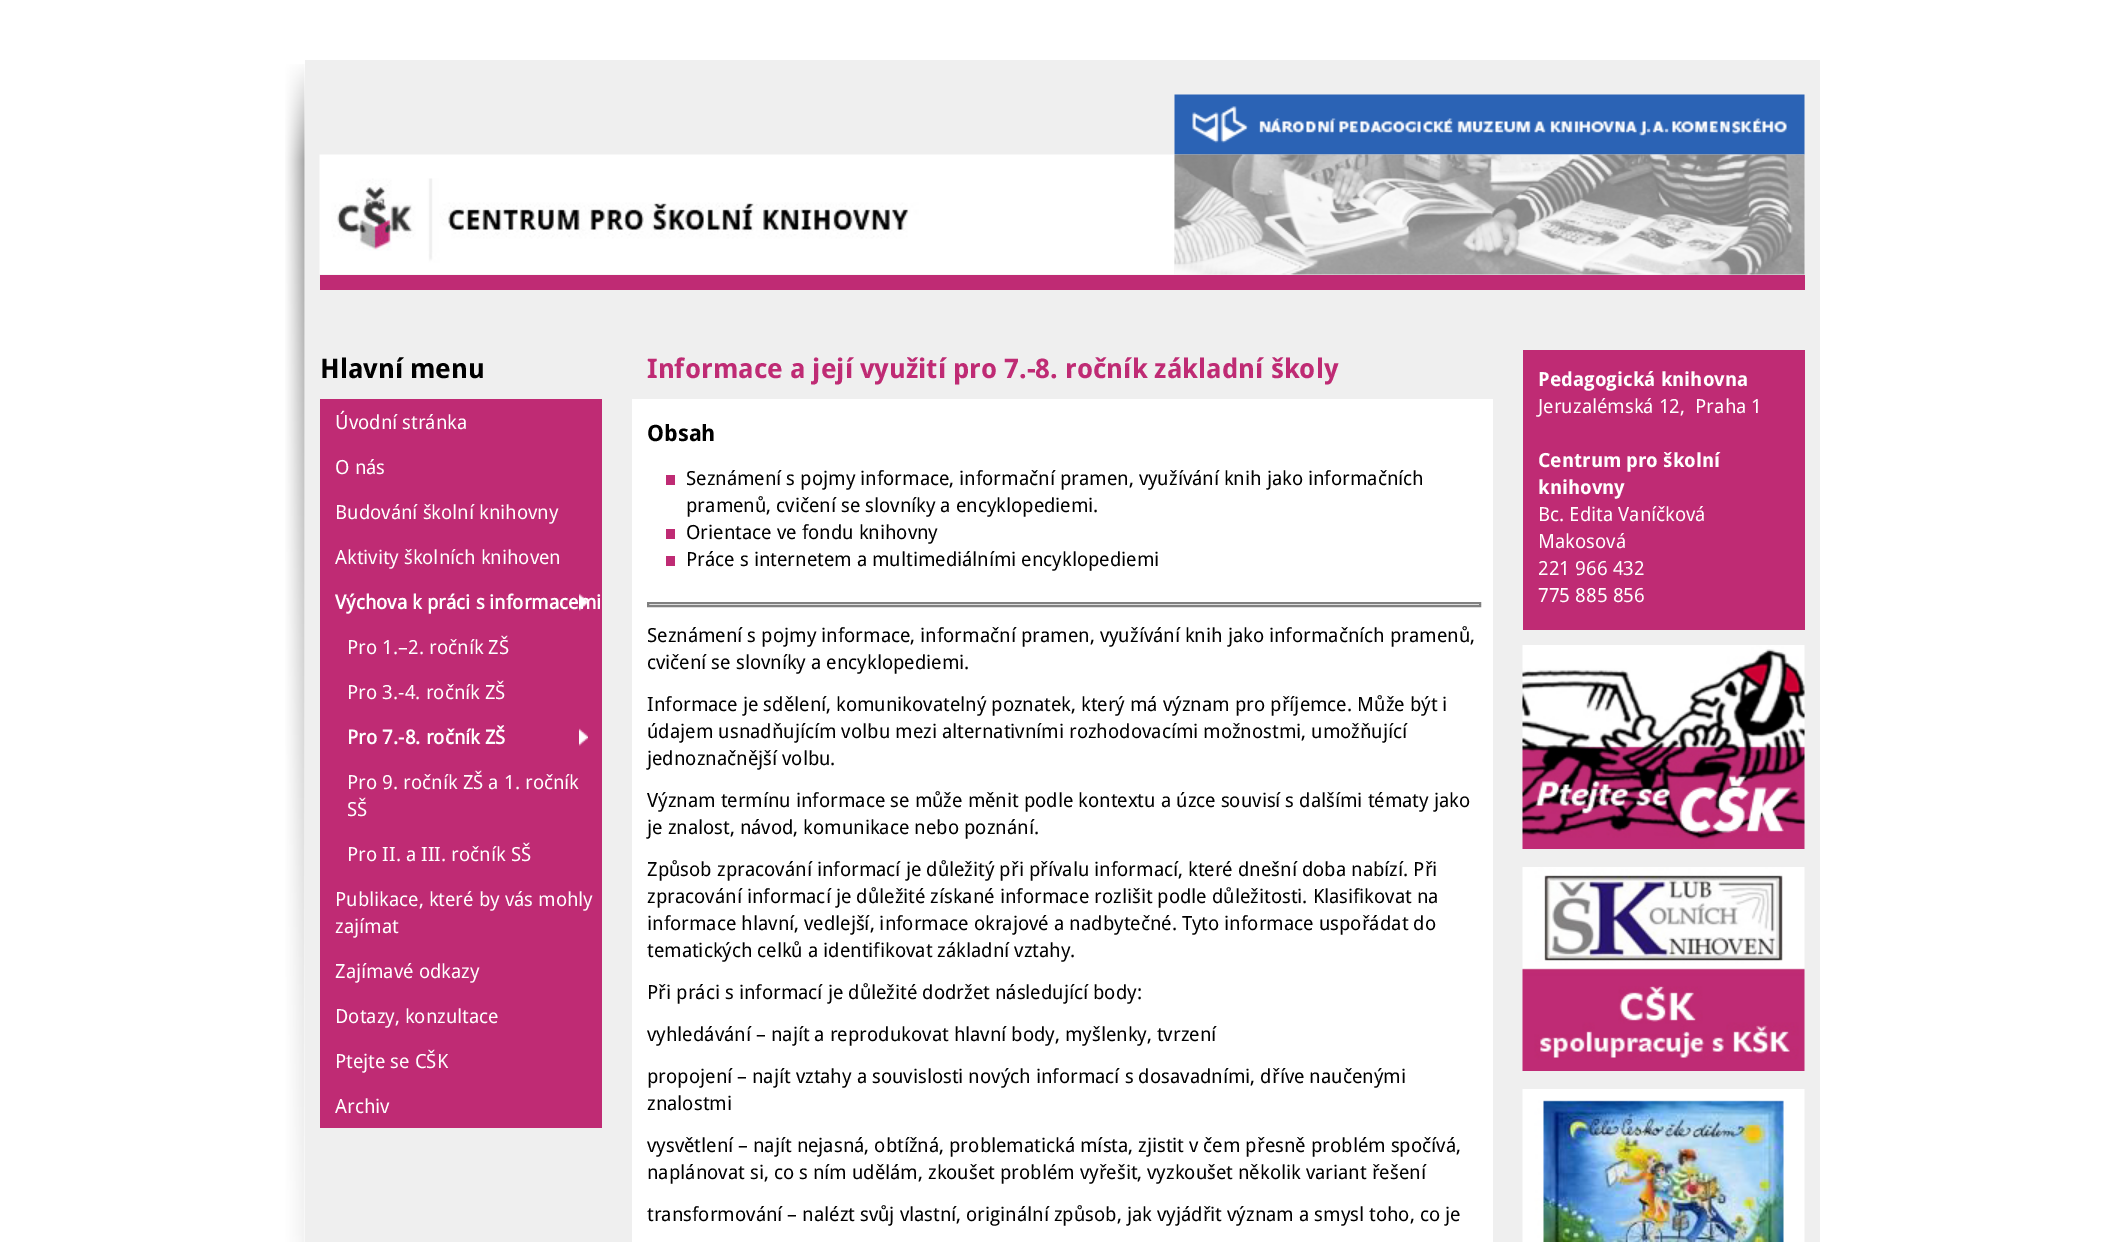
%!PS-Adobe-3.0
%%BoundingBox: 0 0 2124 1242
%%LanguageLevel: 3
%%Pages: 1
%%EndComments
%%BeginProlog
/setink { dup -16 bitshift 255 div exch dup -8 bitshift 255 and 255 div exch 255 and 255 div setrgbcolor } def
/usefont { [ exch dup neg 0 0 3 -1 roll 0 0 ] selectfont } def
/drawimage { 5 dict begin { /h /w /y /x /name } { exch def } forall
  gsave x y translate w h scale
  w h 8 [w 0 0 h 0 0] name (r) file false 3 colorimage grestore end } def
%%EndProlog
%%BeginSetup
<< /PageSize [2124 1242] >> setpagedevice
%%EndSetup
%%Page: 1 1
0 1242 translate 1 -1 scale
4 setmiterlimit
16#FFFFFF setink
0 0 2124 1242 rectfill
(img1.raw) 285 64 20 1178 drawimage
16#EFEFEF setink
305 60 1515 1182 rectfill
(img2.raw) 1174 94 631 61 drawimage
(img3.raw) 319 154 856 121 drawimage
(img4.raw) 1174 154 631 121 drawimage
16#BF2B74 setink
320 275 1485 15 rectfill
/DroidSans-Bold 27 usefont
16#000000 setink
320 378 moveto (Hlavní menu) show
16#BF2B74 setink
320 399 282 729 rectfill
/DroidSans-Regular 19.5 usefont
16#FFFFFF setink
[
    [(Úvodní stránka) 335 429]
    [(O nás) 335 474]
    [(Budování školní knihovny) 335 519]
    [(Aktivity školních knihoven) 335 564]
] { aload pop moveto show } forall
(img5.raw) 579 593 9 18 drawimage
/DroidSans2-Bold 19.5 usefont
335 609 moveto (Výchova k práci s informacemi) show
/DroidSans-Regular 19.5 usefont
347 654 moveto (Pro 1.–2. ročník ZŠ) show
347 699 moveto (Pro 3.-4. ročník ZŠ) show
(img5.raw) 579 728 9 18 drawimage
/DroidSans2-Bold 19.5 usefont
347 744 moveto (Pro 7.-8. ročník ZŠ) show
/DroidSans-Regular 19.5 usefont
[
    [(Pro 9. ročník ZŠ a 1. ročník) 347 789]
    [(SŠ) 347 816]
    [(Pro II. a III. ročník SŠ) 347 861]
    [(Publikace, které by vás mohly) 335 906]
    [(zajímat) 335 933]
    [(Zajímavé odkazy) 335 978]
    [(Dotazy, konzultace) 335 1023]
    [(Ptejte se CŠK) 335 1068]
    [(Archiv) 335 1113]
] { aload pop moveto show } forall
/DroidSans-Bold 27 usefont
16#BF2B74 setink
647 378 moveto (Informace a její využití pro 7.-8. ročník základní školy) show
16#FFFFFF setink
632 399 861 843 rectfill
/DroidSans-Bold 22.5 usefont
16#000000 setink
647 441 moveto (Obsah) show
16#BF2B74 setink
666 475 9 10 rectfill
/DroidSans-Regular 19.5 usefont
16#000000 setink
686 485 moveto (Seznámení s pojmy informace, informační pramen, využívání knih jako informačních) show
686 512 moveto (pramenů, cvičení se slovníky a encyklopediemi.) show
16#BF2B74 setink
666 529 9 10 rectfill
16#000000 setink
686 539 moveto (Orientace ve fondu knihovny) show
16#BF2B74 setink
666 556 9 10 rectfill
16#000000 setink
686 566 moveto (Práce s internetem a multimediálními encyklopediemi) show
16#808080 setink
2 setlinewidth
648 603 832 3 rectstroke
16#000000 setink
[
    [(Seznámení s pojmy informace, informační pramen, využívání knih jako informačních pramenů,) 647 642]
    [(cvičení se slovníky a encyklopediemi.) 647 669]
    [(Informace je sdělení, komunikovatelný poznatek, který má význam pro příjemce. Může být i) 647 711]
    [(údajem usnadňujícím volbu mezi alternativními rozhodovacími možnostmi, umožňující) 647 738]
    [(jednoznačnější volbu.) 647 765]
    [(Význam termínu informace se může měnit podle kontextu a úzce souvisí s dalšími tématy jako) 647 807]
    [(je znalost, návod, komunikace nebo poznání.) 647 834]
    [(Způsob zpracování informací je důležitý při přívalu informací, které dnešní doba nabízí. Při) 647 876]
    [(zpracování informací je důležité získané informace rozlišit podle důležitosti. Klasifikovat na) 647 903]
    [(informace hlavní, vedlejší, informace okrajové a nadbytečné. Tyto informace uspořádat do) 647 930]
    [(tematických celků a identifikovat základní vztahy.) 647 957]
    [(Při práci s informací je důležité dodržet následující body:) 647 999]
    [(vyhledávání – najít a reprodukovat hlavní body, myšlenky, tvrzení) 647 1041]
    [(propojení – najít vztahy a souvislosti nových informací s dosavadními, dříve naučenými) 647 1083]
    [(znalostmi) 647 1110]
    [(vysvětlení – najít nejasná, obtížná, problematická místa, zjistit v čem přesně problém spočívá,) 647 1152]
    [(naplánovat si, co s ním udělám, zkoušet problém vyřešit, vyzkoušet několik variant řešení) 647 1179]
    [(transformování – nalézt svůj vlastní, originální způsob, jak vyjádřit význam a smysl toho, co je) 647 1221]
] { aload pop moveto show } forall
16#BF2B74 setink
1523 350 282 280 rectfill
/DroidSans-Bold 19.5 usefont
16#FFFFFF setink
1538 386 moveto (Pedagogická knihovna) show
/DroidSans-Regular 19.5 usefont
1538 413 moveto (Jeruzalémská 12,  Praha 1) show
/DroidSans-Bold 19.5 usefont
1538 467 moveto (Centrum pro školní) show
1538 494 moveto (knihovny) show
/DroidSans-Regular 19.5 usefont
[
    [(Bc. Edita Vaníčková) 1538 521]
    [(Makosová) 1538 548]
    [(221 966 432) 1538 575]
    [(775 885 856) 1538 602]
] { aload pop moveto show } forall
(img6.raw) 1522 645 283 204 drawimage
(img7.raw) 1522 867 283 204 drawimage
(img8.raw) 1522 1089 283 153 drawimage
showpage
%%EOF
